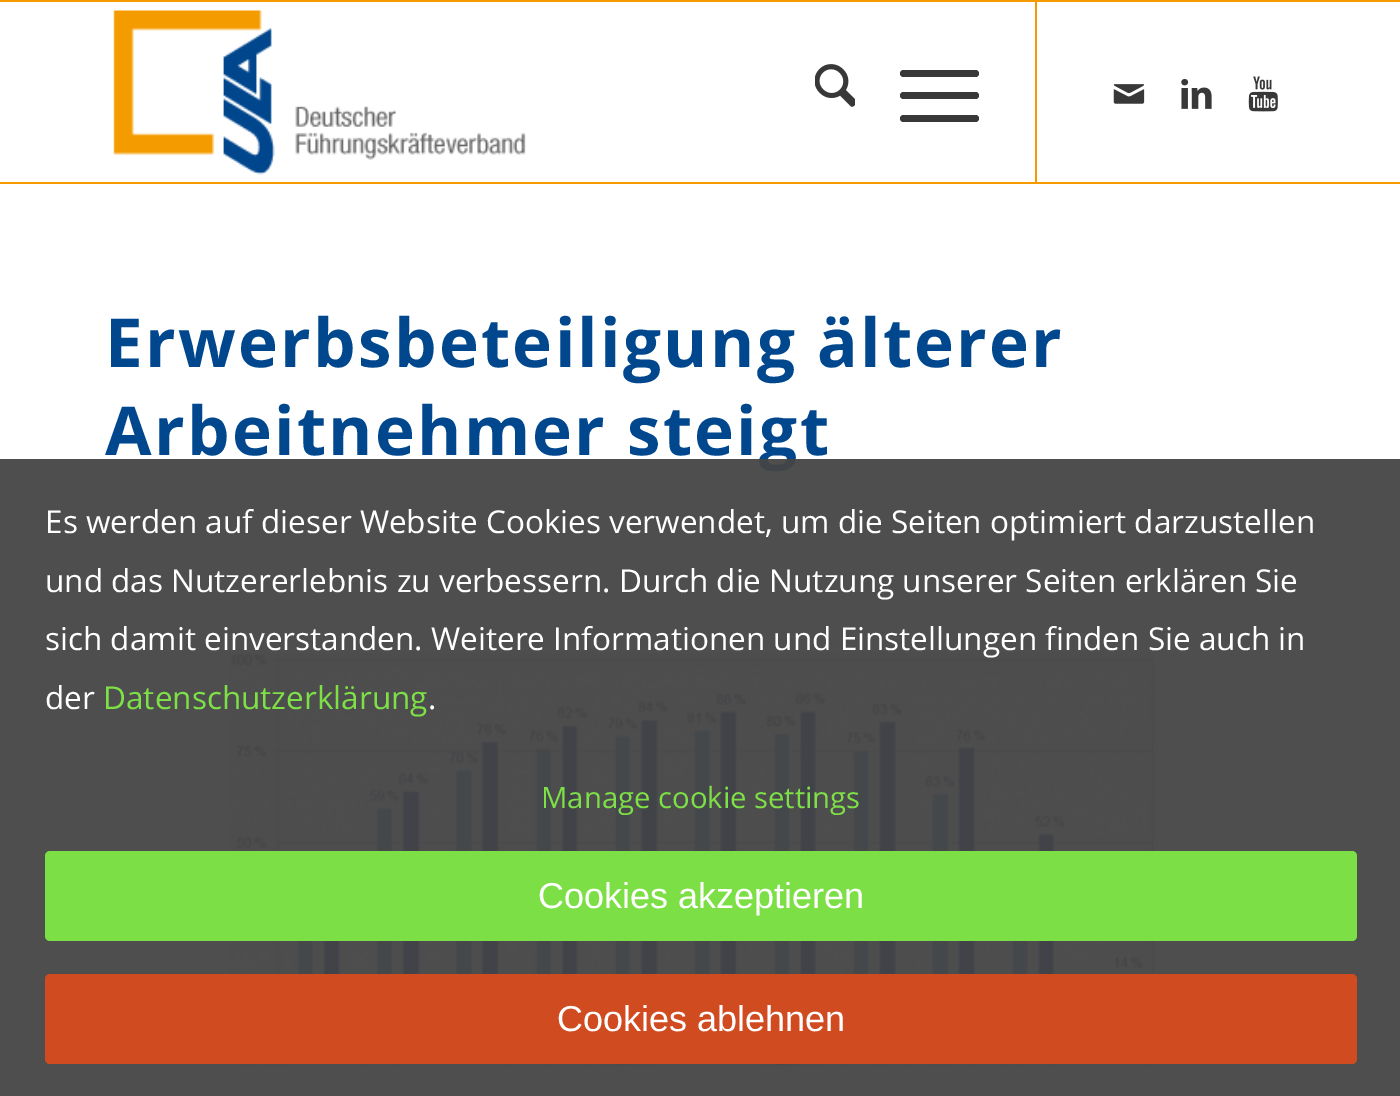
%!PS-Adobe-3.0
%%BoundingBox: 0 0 1400 1096
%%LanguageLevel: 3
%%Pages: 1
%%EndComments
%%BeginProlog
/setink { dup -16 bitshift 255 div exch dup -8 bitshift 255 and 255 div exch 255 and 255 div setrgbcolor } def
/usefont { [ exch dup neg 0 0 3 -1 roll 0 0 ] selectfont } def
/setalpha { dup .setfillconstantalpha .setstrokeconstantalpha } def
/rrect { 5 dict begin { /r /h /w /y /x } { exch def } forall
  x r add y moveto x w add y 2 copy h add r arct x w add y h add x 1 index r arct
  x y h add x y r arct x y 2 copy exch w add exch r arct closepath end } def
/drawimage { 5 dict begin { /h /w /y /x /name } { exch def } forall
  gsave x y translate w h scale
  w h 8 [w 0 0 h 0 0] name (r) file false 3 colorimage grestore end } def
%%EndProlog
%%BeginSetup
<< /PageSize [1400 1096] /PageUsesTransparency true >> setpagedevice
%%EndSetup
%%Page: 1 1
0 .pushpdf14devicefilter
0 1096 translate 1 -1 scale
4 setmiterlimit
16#FFFFFF setink
0 0 1400 1096 rectfill
16#F59B00 setink
0 0 1400 2 rectfill
0 182 1400 2 rectfill
(img1.raw) 113 10 413 165 drawimage
1035 2 2 180 rectfill
(img2.raw) 815 64 40 43 drawimage
16#383838 setink
900 92 79 7 3.5 rrect fill
900 70 79 7 3.5 rrect fill
900 115 79 7 3.5 rrect fill
(img3.raw) 1113 84 32 20 drawimage
(img4.raw) 1181 79 31 30 drawimage
(img5.raw) 1248 76 30 36 drawimage
/OpenSans-Bold 67.5 usefont
16#00478E setink
105 367 moveto 2.25 0 (Erwerbsbeteiligung älterer) ashow
105 455 moveto 2.25 0 (Arbeitnehmer steigt) ashow
(img6.raw) 229 653 925 414 drawimage
0.95 setalpha
16#444444 setink
0 459 1400 637 rectfill
/OpenSans-Regular 31.5 usefont
1 setalpha
16#FFFFFF setink
[
    [(Es werden auf dieser Website Cookies verwendet, um die Seiten optimiert darzustellen) 45 533]
    [(und das Nutzererlebnis zu verbessern. Durch die Nutzung unserer Seiten erklären Sie) 45 592]
    [(sich damit einverstanden. Weitere Informationen und Einstellungen finden Sie auch in) 45 650]
    [(der) 45 709]
] { aload pop moveto show } forall
16#7DE047 setink
103 709 moveto (Datenschutzerklärung) show
16#FFFFFF setink
428 709 moveto (.) show
/OpenSans-Regular 29.25 usefont
16#7DE047 setink
541 808 moveto (Manage cookie settings) show
16#7CDF46 setink
45 851 1312 90 5 rrect fill
/LiberationSans-Regular 36 usefont
16#FFFFFF setink
538 908 moveto (Cookies akzeptieren) show
16#D04C20 setink
45 974 1312 90 5 rrect fill
16#FFFFFF setink
557 1031 moveto (Cookies ablehnen) show
.poppdf14devicefilter showpage
%%EOF
